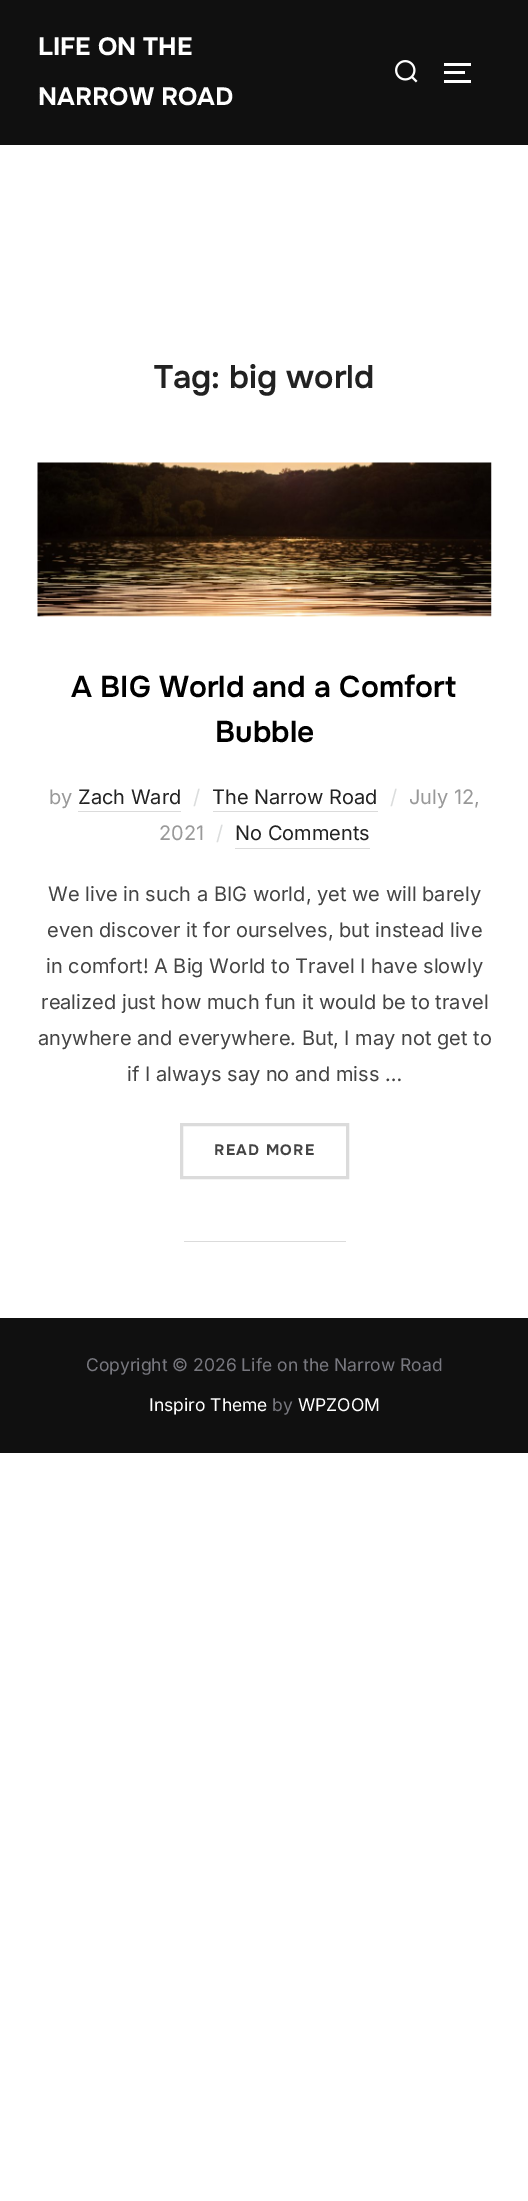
%!PS-Adobe-3.0
%%BoundingBox: 0 0 528 2201
%%LanguageLevel: 3
%%Pages: 1
%%EndComments
%%BeginProlog
/setink { dup -16 bitshift 255 div exch dup -8 bitshift 255 and 255 div exch 255 and 255 div setrgbcolor } def
/usefont { [ exch dup neg 0 0 3 -1 roll 0 0 ] selectfont } def
/drawimage { 5 dict begin { /h /w /y /x /name } { exch def } forall
  gsave x y translate w h scale
  w h 8 [w 0 0 h 0 0] name (r) file false 3 colorimage grestore end } def
%%EndProlog
%%BeginSetup
<< /PageSize [528 2201] >> setpagedevice
%%EndSetup
%%Page: 1 1
0 2201 translate 1 -1 scale
4 setmiterlimit
16#FFFFFF setink
0 0 528 2201 rectfill
16#101010 setink
0 0 528 145 rectfill
/Onest-Bold 25 usefont
16#FFFFFF setink
38 55 moveto (LIFE ON THE) show
38 105 moveto (NARROW ROAD) show
(img1.raw) 395 60 23 23 drawimage
[
    [444 63 27 3 16#FFFFFF]
    [444 71 21 3 16#FFFFFF]
    [444 80 27 3 16#FFFFFF]
] { aload pop setink rectfill } forall
/Onest-SemiBold 32.5 usefont
16#222222 setink
154 388 moveto (Tag: big world) show
(img2.raw) 37 462 455 155 drawimage
/Onest-SemiBold 30 usefont
16#000000 setink
71 697 moveto (A BIG World and a Comfort) show
215 742 moveto (Bubble) show
/Inter-Regular 20 usefont
16#999999 setink
49 804 moveto (by) show
16#222222 setink
78 804 moveto (Zach Ward) show
16#DBDBDB setink
78 811 103 1 rectfill
16#DBDDDD setink
193 804 moveto (/) show
16#222222 setink
212 804 moveto (The Narrow Road) show
16#DBDBDB setink
213 811 165 1 rectfill
16#DBDDDD setink
390 804 moveto (/) show
16#999999 setink
409 804 moveto (July 12,) show
159 840 moveto (2021) show
16#DBDDDD setink
216 840 moveto (/) show
16#222222 setink
235 840 moveto (No Comments) show
16#DBDBDB setink
235 848 135 1 rectfill
16#444444 setink
[
    [(We live in such a BIG world, yet we will barely) 48 901]
    [(even discover it for ourselves, but instead live) 47 937]
    [(in comfort! A Big World to Travel I have slowly) 46 973]
    [(realized just how much fun it would be to travel) 41 1009]
    [(anywhere and everywhere. But, I may not get to) 38 1045]
    [(if I always say no and miss …) 127 1081]
] { aload pop moveto show } forall
16#DBDBDB setink
3 setlinewidth
181.5 1124.5 166 53 rectstroke
/Onest-Bold 15 usefont
16#444444 setink
214 1155 moveto 1.25 0 (READ MORE) ashow
16#DBDBDB setink
184 1241 162 1 rectfill
16#101010 setink
0 1318 528 135 rectfill
/Inter-Regular 17.5 usefont
16#78787F setink
86 1371 moveto (Copyright © 2026 Life on the Narrow Road) show
16#FFFFFF setink
149 1411 moveto (Inspiro Theme) show
16#78787F setink
272 1411 moveto (by) show
16#FFFFFF setink
298 1411 moveto (WPZOOM) show
showpage
%%EOF
